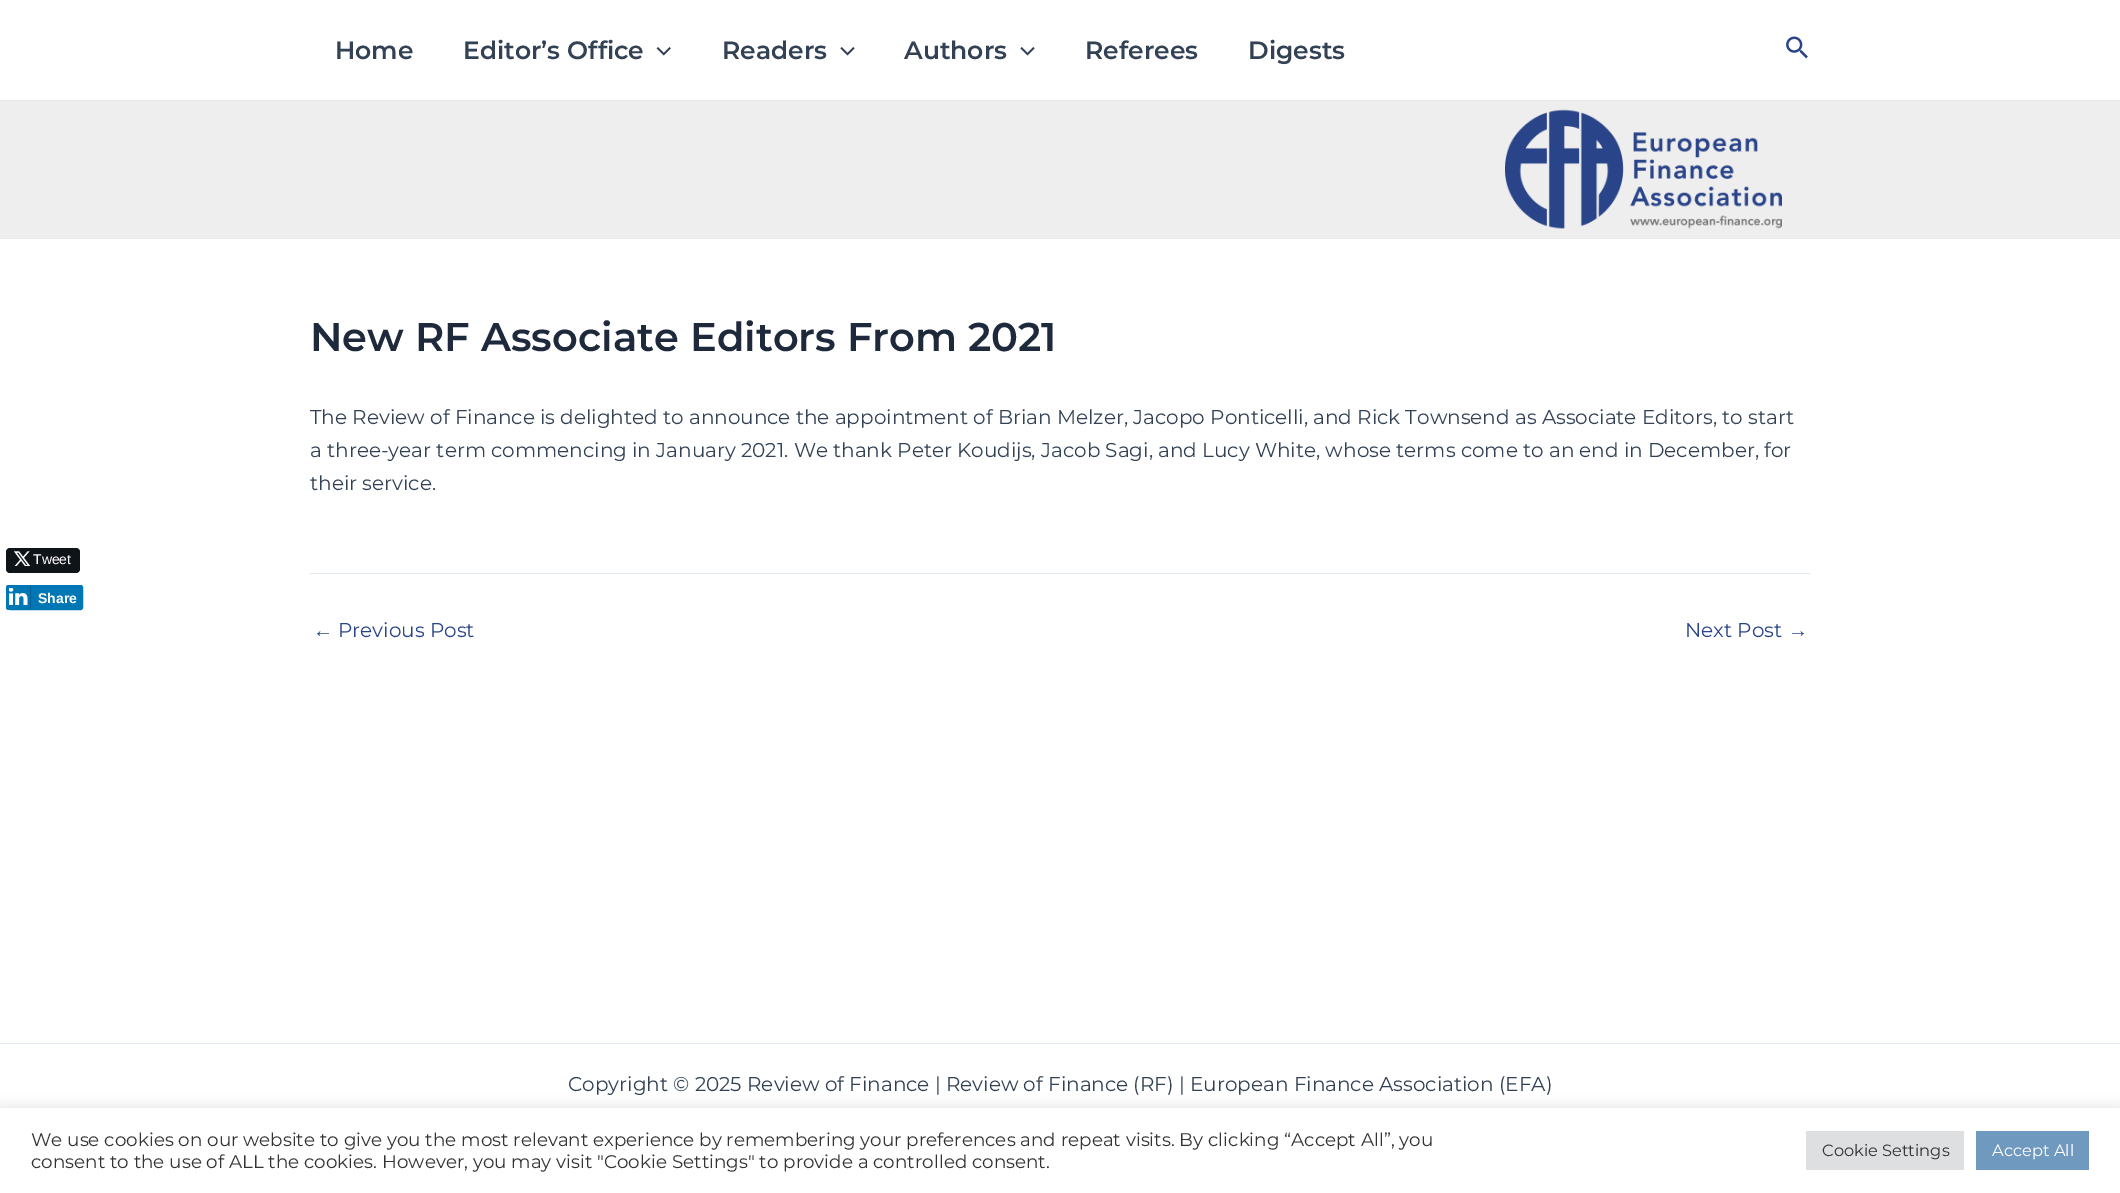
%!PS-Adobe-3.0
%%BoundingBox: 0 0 2120 1193
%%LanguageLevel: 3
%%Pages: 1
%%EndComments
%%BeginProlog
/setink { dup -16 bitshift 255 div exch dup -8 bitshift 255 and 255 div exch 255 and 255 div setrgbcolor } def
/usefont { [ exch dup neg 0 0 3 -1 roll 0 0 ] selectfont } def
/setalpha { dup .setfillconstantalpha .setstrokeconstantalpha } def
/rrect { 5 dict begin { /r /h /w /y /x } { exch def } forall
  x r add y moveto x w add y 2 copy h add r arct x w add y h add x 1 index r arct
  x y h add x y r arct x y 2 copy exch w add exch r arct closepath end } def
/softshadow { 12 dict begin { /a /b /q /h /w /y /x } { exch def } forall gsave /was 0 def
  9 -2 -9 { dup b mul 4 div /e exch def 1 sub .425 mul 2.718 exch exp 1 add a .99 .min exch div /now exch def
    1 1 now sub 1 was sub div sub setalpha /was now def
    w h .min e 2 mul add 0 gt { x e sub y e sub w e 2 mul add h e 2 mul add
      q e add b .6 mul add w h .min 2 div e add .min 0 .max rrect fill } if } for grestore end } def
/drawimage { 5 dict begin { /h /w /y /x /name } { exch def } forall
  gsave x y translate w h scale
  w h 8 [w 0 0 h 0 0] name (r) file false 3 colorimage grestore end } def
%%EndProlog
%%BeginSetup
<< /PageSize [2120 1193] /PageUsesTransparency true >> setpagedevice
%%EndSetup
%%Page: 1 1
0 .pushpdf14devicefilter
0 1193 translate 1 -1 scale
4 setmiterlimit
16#FFFFFF setink
0 0 2120 1193 rectfill
16#0F1419 setink
6 548 74 25 4 rrect fill
(img1.raw) 14 551 17 15 drawimage
/LiberationSans-Regular 14 usefont
16#FFFFFF setink
33 564 moveto (Tweet) show
16#0077B5 setink
8.5 585.5 74 24 2 rrect gsave fill grestore
stroke
6 585 25 25 2.5 rrect fill
16#066094 setink
30 586 1 23 rectfill
(img2.raw) 9 588 19 17 drawimage
/LiberationSans-Bold 14 usefont
16#FFFFFF setink
38 603 moveto (Share) show
16#EAEAEA setink
0 100 2120 1 rectfill
/Montserrat-SemiBold 25 usefont
16#334155 setink
335 59 moveto (Home) show
463 59 moveto (Editor’s Office) show
(img3.raw) 656 47 15 9 drawimage
722 59 moveto (Readers) show
(img4.raw) 840 47 15 9 drawimage
904 59 moveto (Authors) show
(img4.raw) 1020 47 15 9 drawimage
1085 59 moveto (Referees) show
1248 59 moveto (Digests) show
(img5.raw) 1786 36 22 23 drawimage
16#EEEEEE setink
0 101 2120 137 rectfill
16#EAEAEA setink
0 238 2120 1 rectfill
(img6.raw) 1505 109 277 120 drawimage
/Montserrat-SemiBold 40 usefont
16#1E293B setink
310 351 moveto (New RF Associate Editors From 2021) show
/Montserrat-Regular 20 usefont
16#334155 setink
[
    [(The Review of Finance is delighted to announce the appointment of Brian Melzer, Jacopo Ponticelli, and Rick Townsend as Associate Editors, to start) 310 424]
    [(a three-year term commencing in January 2021. We thank Peter Koudijs, Jacob Sagi, and Lucy White, whose terms come to an end in December, for) 310 457]
    [(their service.) 310 490]
] { aload pop moveto show } forall
16#E2E8F0 setink
310 573 1500 1 rectfill
/LiberationSans-Regular 20 usefont
16#2A4489 setink
313 637 moveto (←) show
/Montserrat-Regular 20 usefont
338 637 moveto (Previous Post) show
1685 637 moveto (Next Post) show
/LiberationSans-Regular 20 usefont
1788 637 moveto (→) show
16#E2E8F0 setink
0 1043 2120 1 rectfill
/Montserrat-Regular 20 usefont
16#334155 setink
568 1091 moveto (Copyright © 2025 Review of Finance | Review of Finance \(RF\) | European Finance Association \(EFA\)) show
16#ACABAB setink
0 1106 2120 87 0 6 0.3 softshadow
16#FFFFFF setink
0 1108 2120 85 rectfill
/Montserrat-Regular 18.33 usefont
16#333333 setink
31 1146 moveto (We use cookies on our website to give you the most relevant experience by remembering your preferences and repeat visits. By clicking “Accept All”, you) show
31 1168 moveto (consent to the use of ALL the cookies. However, you may visit "Cookie Settings" to provide a controlled consent.) show
16#DEDFE0 setink
1806 1131 158 39 rectfill
/Montserrat-Regular 16.25 usefont
16#333333 setink
1822 1156 moveto (Cookie Settings) show
16#7099BF setink
1976 1131 113 39 rectfill
16#FFFFFF setink
1992 1156 moveto (Accept All) show
.poppdf14devicefilter showpage
%%EOF
